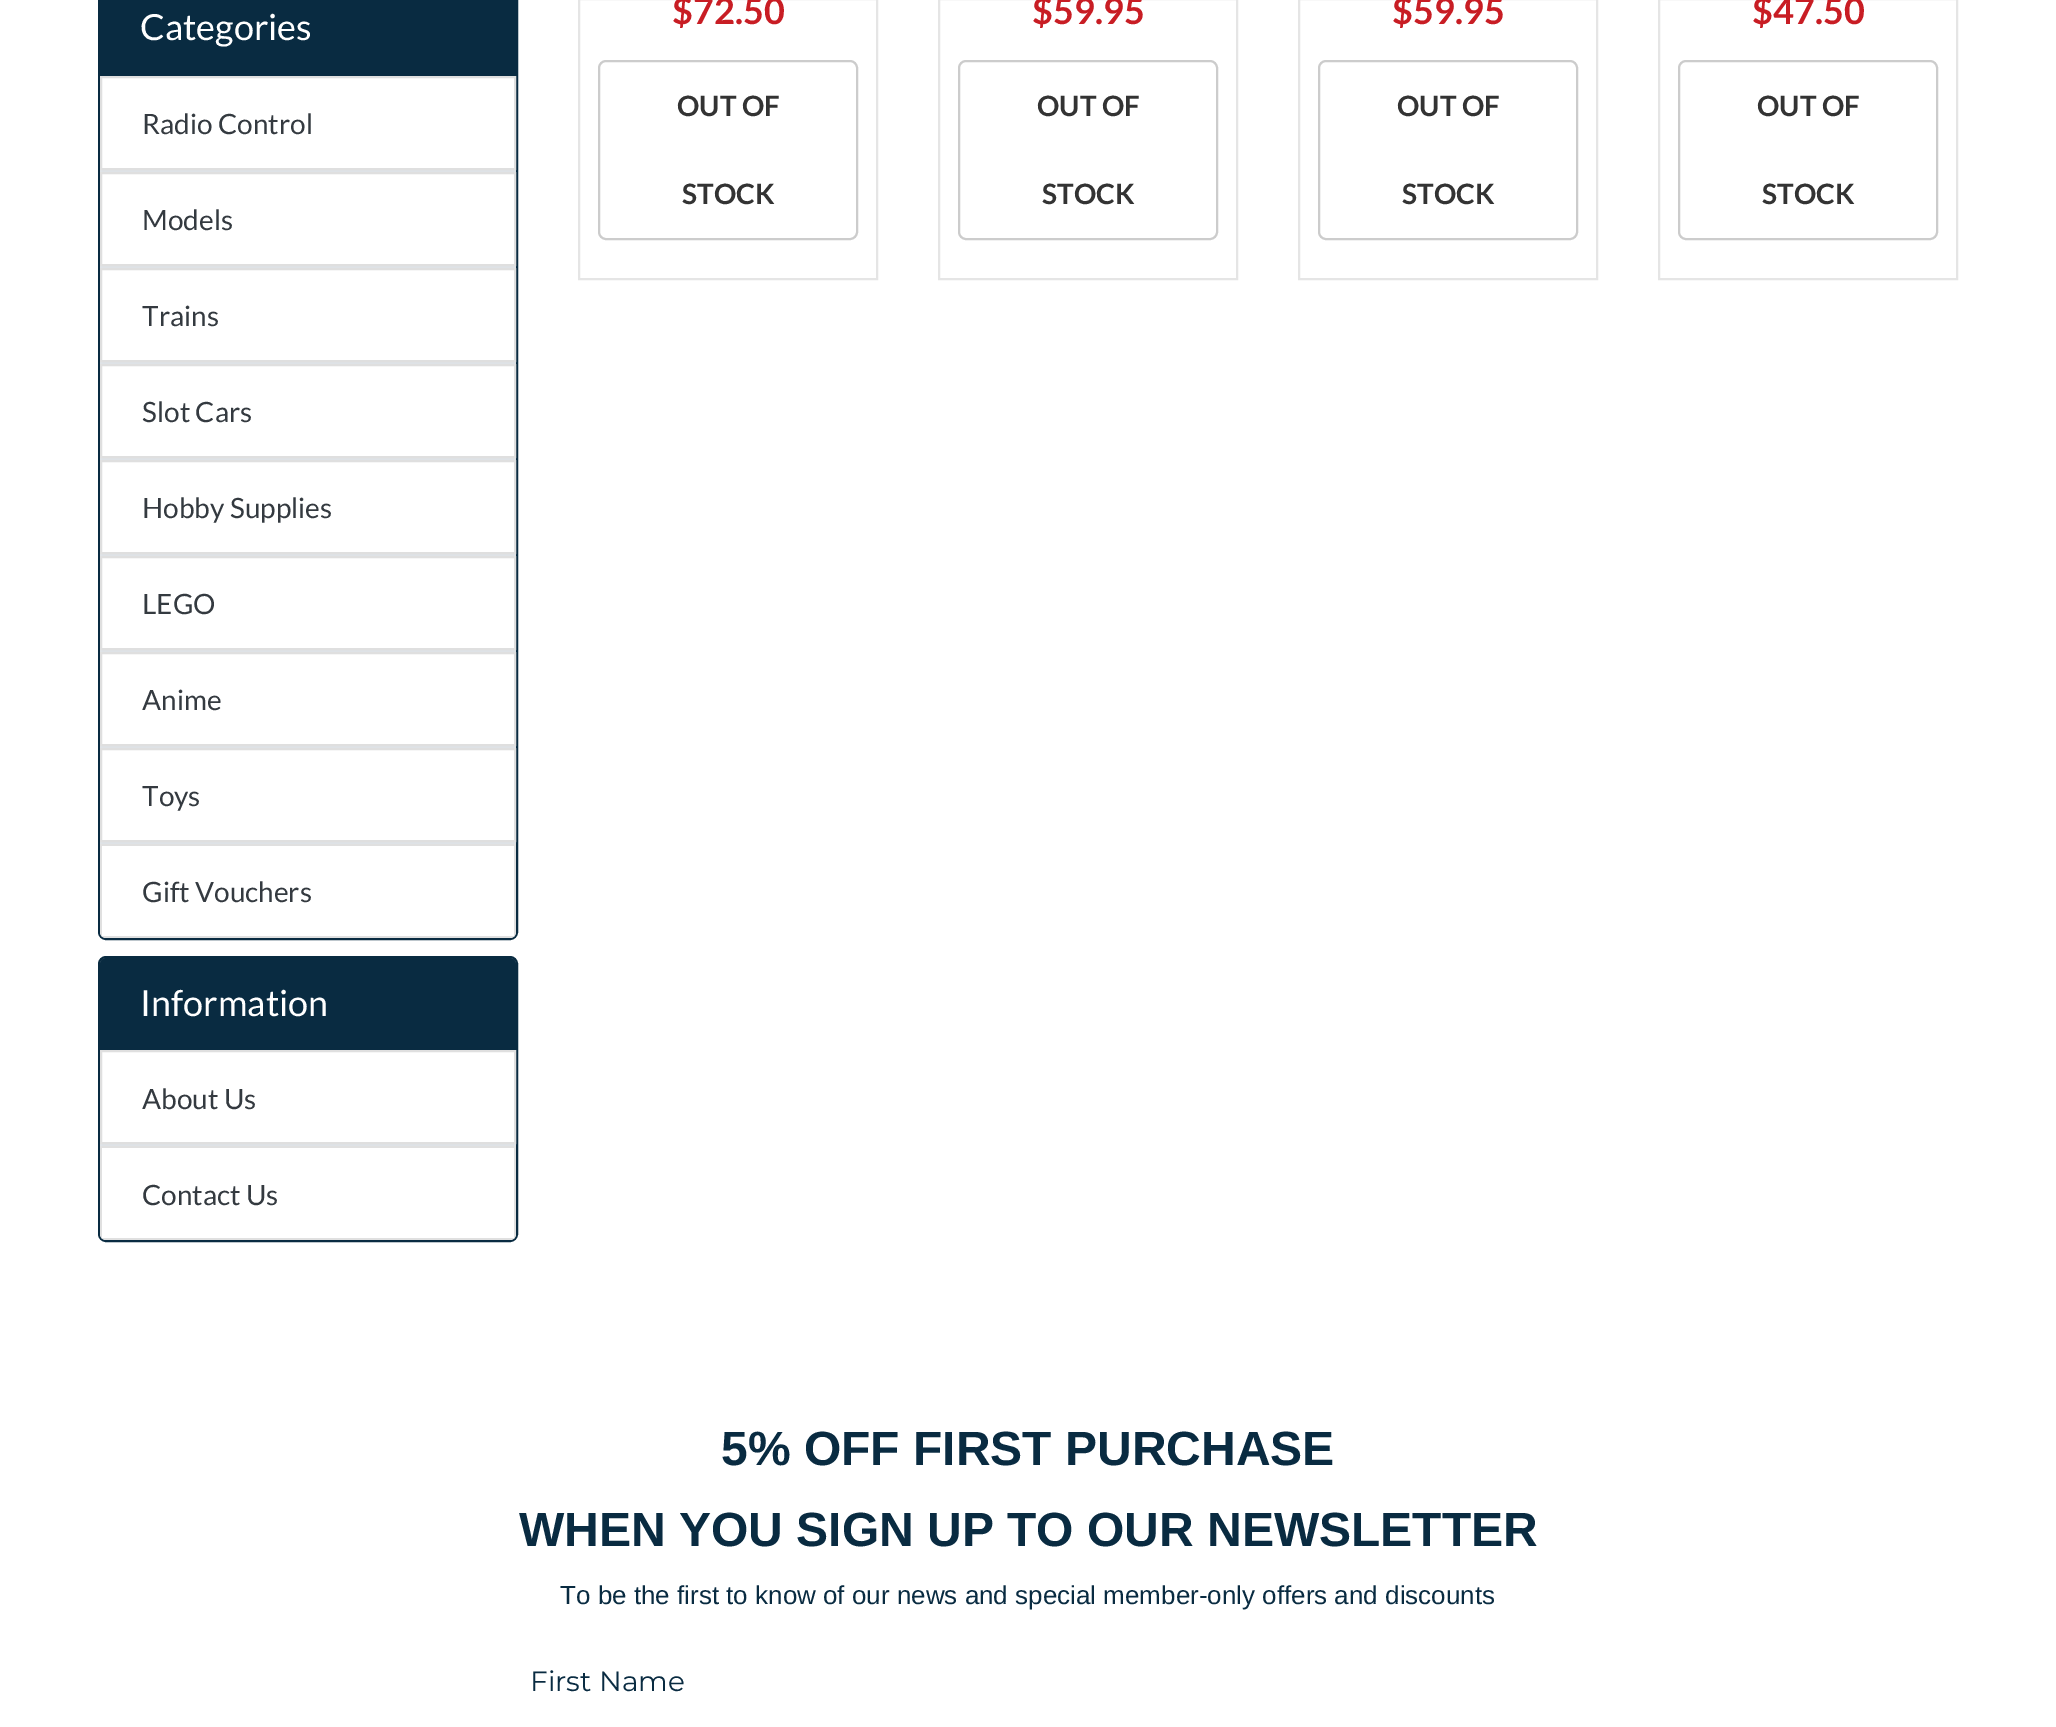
%!PS-Adobe-3.0
%%BoundingBox: 0 0 2056 1727
%%LanguageLevel: 3
%%Pages: 1
%%EndComments
%%BeginProlog
/setink { dup -16 bitshift 255 div exch dup -8 bitshift 255 and 255 div exch 255 and 255 div setrgbcolor } def
/usefont { [ exch dup neg 0 0 3 -1 roll 0 0 ] selectfont } def
/setalpha { dup .setfillconstantalpha .setstrokeconstantalpha } def
/rrect { 5 dict begin { /r /h /w /y /x } { exch def } forall
  x r add y moveto x w add y 2 copy h add r arct x w add y h add x 1 index r arct
  x y h add x y r arct x y 2 copy exch w add exch r arct closepath end } def
%%EndProlog
%%BeginSetup
<< /PageSize [2056 1727] /PageUsesTransparency true >> setpagedevice
%%EndSetup
%%Page: 1 1
0 .pushpdf14devicefilter
0 1727 translate 1 -1 scale
4 setmiterlimit
16#FFFFFF setink
0 0 2056 1727 rectfill
16#092B41 setink
2 setlinewidth
99 -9 418 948 7 rrect stroke
100 0 416 76 rectfill
/Lato-Regular 36 usefont
16#FFFFFF setink
140 40 moveto (Categories) show
16#DEE2E6 setink
100 170 416 2 rectfill
16#DFDFDF setink
101 77 414 92 rectstroke
/Lato-Regular 28 usefont
16#343A40 setink
142 134 moveto (Radio Control) show
16#DEE2E6 setink
100 266 416 2 rectfill
16#DFDFDF setink
101 173 414 92 rectstroke
16#343A40 setink
142 230 moveto (Models) show
16#DEE2E6 setink
100 362 416 2 rectfill
16#DFDFDF setink
101 269 414 92 rectstroke
16#343A40 setink
142 326 moveto (Trains) show
16#DEE2E6 setink
100 458 416 2 rectfill
16#DFDFDF setink
101 365 414 92 rectstroke
16#343A40 setink
142 422 moveto (Slot Cars) show
16#DEE2E6 setink
100 554 416 2 rectfill
16#DFDFDF setink
101 461 414 92 rectstroke
16#343A40 setink
142 518 moveto (Hobby Supplies) show
16#DEE2E6 setink
100 650 416 2 rectfill
16#DFDFDF setink
101 557 414 92 rectstroke
16#343A40 setink
142 614 moveto (LEGO) show
16#DEE2E6 setink
100 746 416 2 rectfill
16#DFDFDF setink
101 653 414 92 rectstroke
16#343A40 setink
142 710 moveto (Anime) show
16#DEE2E6 setink
100 842 416 2 rectfill
16#DFDFDF setink
101 749 414 92 rectstroke
16#343A40 setink
142 806 moveto (Toys) show
16#FFFFFF setink
100 844 moveto 516 844 lineto 516 932 lineto 516 935.5 513.5 938 510 938 curveto 106 938 lineto 102.5 938 100 935.5 100 932 curveto closepath fill
0.12 setalpha
16#000000 setink
100 844 moveto 100 932 lineto 100 935 103 938 106 938 curveto 510 938 lineto 513 938 516 935 516 932 curveto 516 844 lineto closepath 102 846 moveto 102 936 lineto 514 936 lineto 514 846 lineto closepath eofill
1 setalpha
16#343A40 setink
142 902 moveto (Gift Vouchers) show
16#092B41 setink
99 957 418 284 7 rrect stroke
106 958 moveto 510 958 lineto 513.5 958 516 960.5 516 964 curveto 516 1050 lineto 100 1050 lineto 100 964 lineto 100 960.5 102.5 958 106 958 curveto closepath fill
/Lato-Regular 36 usefont
16#FFFFFF setink
140 1016 moveto (Information) show
16#DEE2E6 setink
100 1144 416 2 rectfill
16#DFDFDF setink
101 1051 414 92 rectstroke
/Lato-Regular 28 usefont
16#343A40 setink
142 1109 moveto (About Us) show
16#FFFFFF setink
100 1146 moveto 516 1146 lineto 516 1234 lineto 516 1237.5 513.5 1240 510 1240 curveto 106 1240 lineto 102.5 1240 100 1237.5 100 1234 curveto closepath fill
0.12 setalpha
16#000000 setink
100 1146 moveto 100 1234 lineto 100 1237 103 1240 106 1240 curveto 510 1240 lineto 513 1240 516 1237 516 1234 curveto 516 1146 lineto closepath 102 1148 moveto 102 1238 lineto 514 1238 lineto 514 1148 lineto closepath eofill
1 setalpha
16#343A40 setink
142 1205 moveto (Contact Us) show
16#E5E5E5 setink
579 -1 298 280 rectstroke
/Lato-Bold 36 usefont
16#C81D24 setink
672 24 moveto ($72.50) show
16#CCCCCC setink
599 61 258 178 7 rrect stroke
/Lato-Bold 28 usefont
16#333333 setink
677 116 moveto (OUT OF) show
682 204 moveto (STOCK) show
16#E5E5E5 setink
939 -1 298 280 rectstroke
/Lato-Bold 36 usefont
16#C81D24 setink
1032 24 moveto ($59.95) show
16#CCCCCC setink
959 61 258 178 7 rrect stroke
/Lato-Bold 28 usefont
16#333333 setink
1037 116 moveto (OUT OF) show
1042 204 moveto (STOCK) show
16#E5E5E5 setink
1299 -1 298 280 rectstroke
/Lato-Bold 36 usefont
16#C81D24 setink
1392 24 moveto ($59.95) show
16#CCCCCC setink
1319 61 258 178 7 rrect stroke
/Lato-Bold 28 usefont
16#333333 setink
1397 116 moveto (OUT OF) show
1402 204 moveto (STOCK) show
16#E5E5E5 setink
1659 -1 298 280 rectstroke
/Lato-Bold 36 usefont
16#C81D24 setink
1752 24 moveto ($47.50) show
16#CCCCCC setink
1679 61 258 178 7 rrect stroke
/Lato-Bold 28 usefont
16#333333 setink
1757 116 moveto (OUT OF) show
1762 204 moveto (STOCK) show
/LiberationSans-Bold 48 usefont
16#092B41 setink
721 1465 moveto (5% OFF FIRST PURCHASE) show
519 1546 moveto (WHEN YOU SIGN UP TO OUR NEWSLETTER) show
/LiberationSans-Regular 26 usefont
560 1604 moveto (To be the first to know of our news and special member-only offers and discounts) show
/Montserrat-Regular 28 usefont
530 1691 moveto (First Name) show
.poppdf14devicefilter showpage
%%EOF
